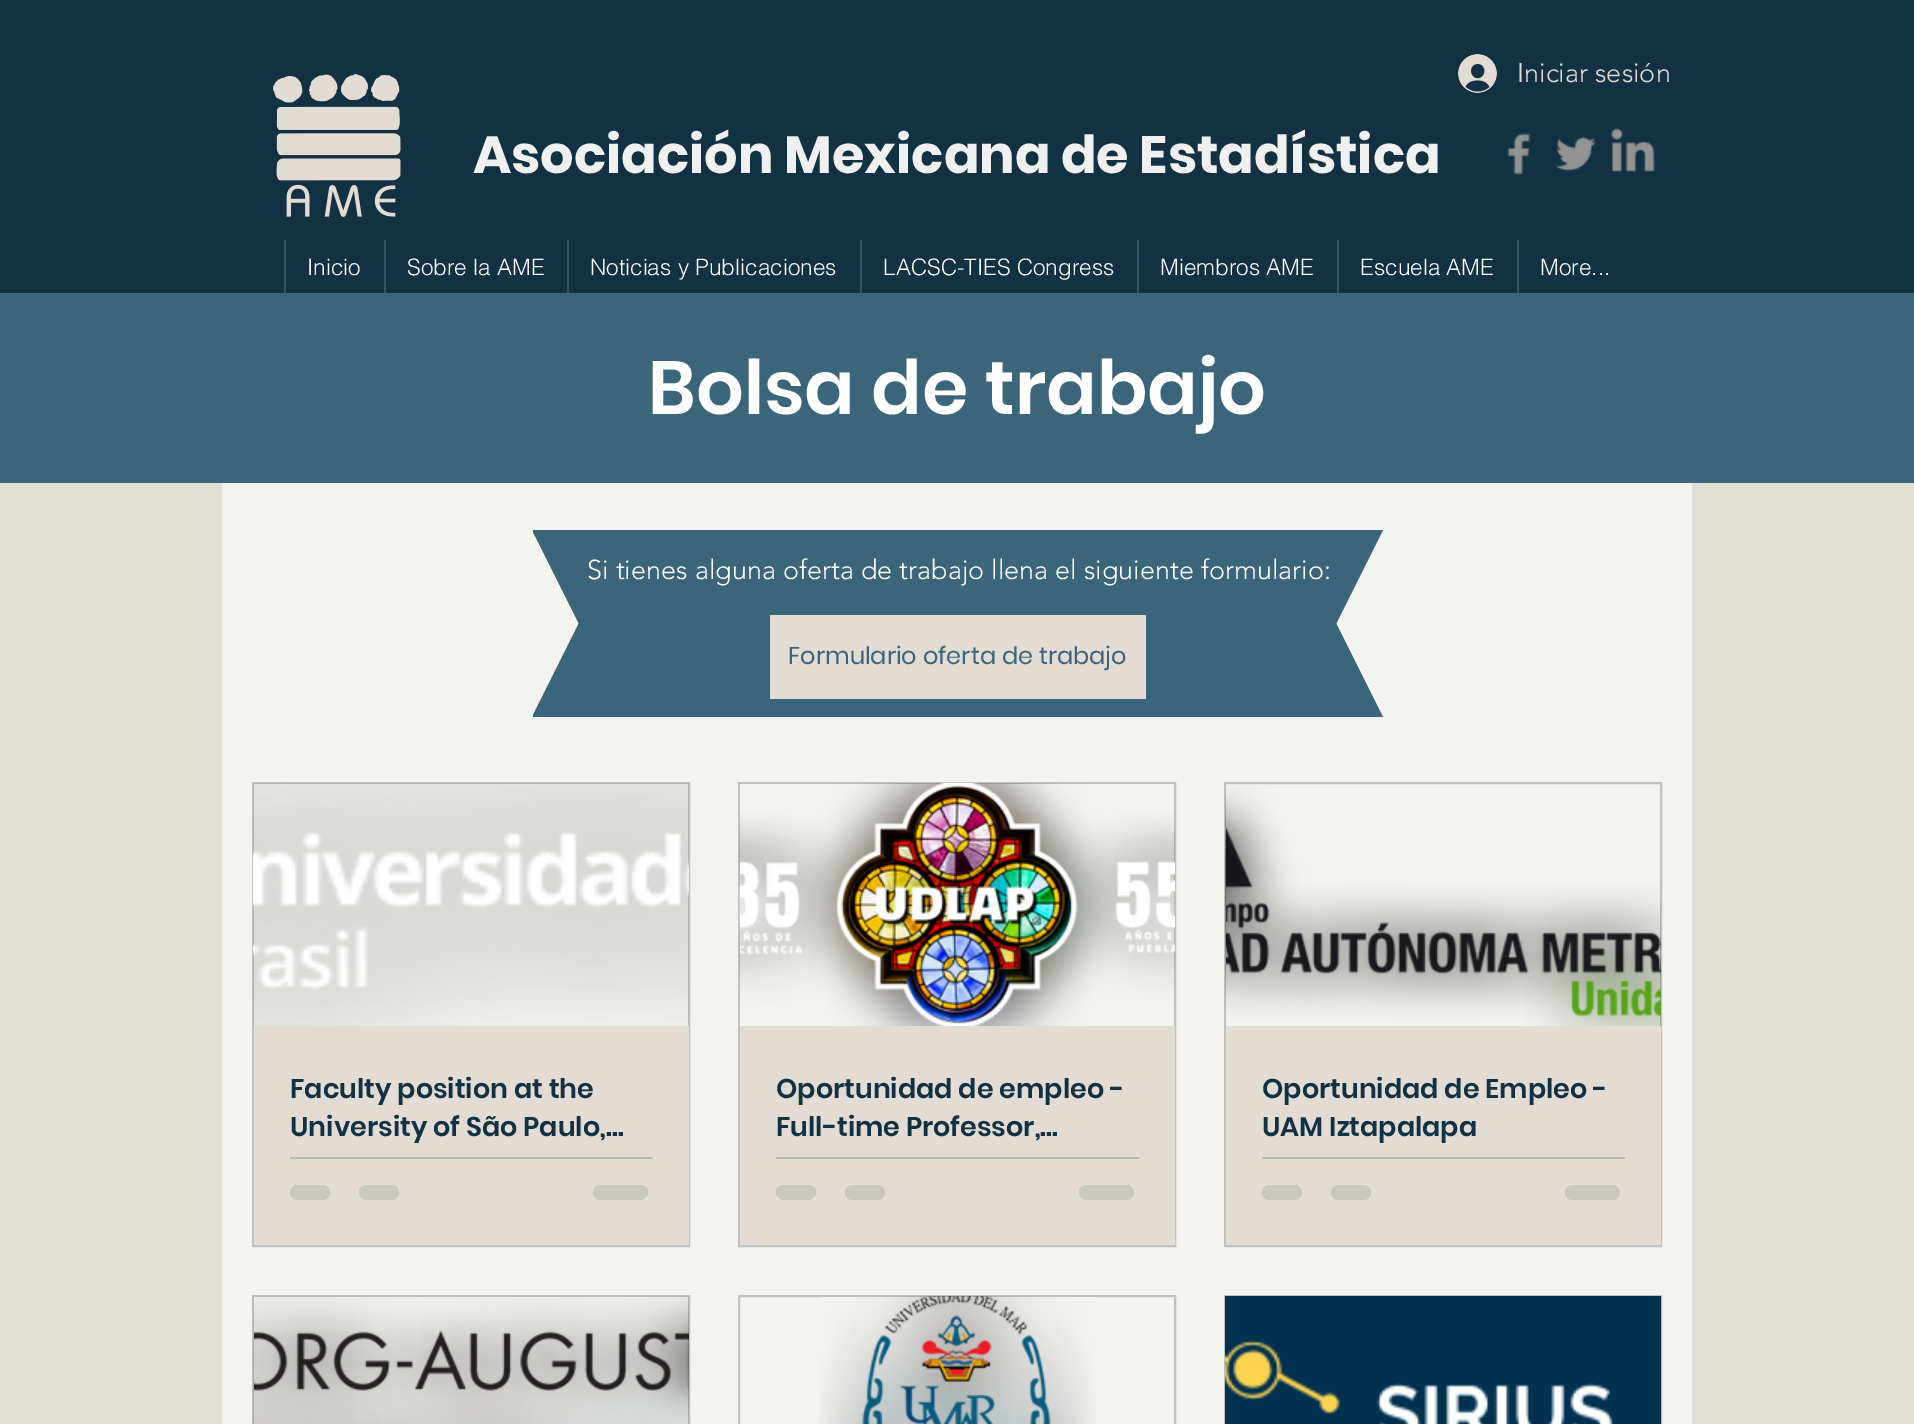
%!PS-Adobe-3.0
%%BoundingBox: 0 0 1914 1424
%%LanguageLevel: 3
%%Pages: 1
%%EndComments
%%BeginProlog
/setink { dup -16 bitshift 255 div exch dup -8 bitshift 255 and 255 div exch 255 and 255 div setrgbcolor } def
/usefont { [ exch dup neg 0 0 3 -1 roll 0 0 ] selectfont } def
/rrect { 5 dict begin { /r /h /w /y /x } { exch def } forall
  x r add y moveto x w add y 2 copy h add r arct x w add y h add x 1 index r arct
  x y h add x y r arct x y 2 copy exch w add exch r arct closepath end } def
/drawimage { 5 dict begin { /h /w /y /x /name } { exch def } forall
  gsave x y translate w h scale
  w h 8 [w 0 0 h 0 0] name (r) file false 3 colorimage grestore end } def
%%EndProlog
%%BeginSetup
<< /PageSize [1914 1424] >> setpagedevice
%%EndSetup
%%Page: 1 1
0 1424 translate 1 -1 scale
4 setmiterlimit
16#E1DED6 setink
0 0 1914 1424 rectfill
16#123142 setink
0 0 1914 293 rectfill
(img1.raw) 273 74 128 143 drawimage
(img2.raw) 1458 54 39 39 drawimage
/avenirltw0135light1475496-Light 27 usefont
16#E2DCD4 setink
1517 82 moveto (Iniciar sesión) show
/Poppins-Bold 52.5 usefont
16#F0F0F0 setink
473 173 moveto (Asociación Mexicana de Estadística) show
(img3.raw) 1507 133 24 42 drawimage
(img4.raw) 1555 136 41 36 drawimage
(img5.raw) 1610 128 45 44 drawimage
16#3C535F setink
284 240 2 53 rectfill
/helvetica-Light 22.5 usefont
16#FFFFFF setink
307 275 moveto (Inicio) show
16#3C535F setink
384 240 2 53 rectfill
16#FFFFFF setink
407 275 moveto (Sobre la AME) show
16#3C535F setink
567 240 2 53 rectfill
16#FFFFFF setink
590 275 moveto (Noticias y Publicaciones) show
16#3C535F setink
860 240 2 53 rectfill
16#FFFFFF setink
883 275 moveto (LACSC-TIES Congress) show
16#3C535F setink
1137 240 2 53 rectfill
16#FFFFFF setink
1160 275 moveto (Miembros AME) show
16#3C535F setink
1337 240 2 53 rectfill
16#FFFFFF setink
1360 275 moveto (Escuela AME) show
16#3C535F setink
1517 240 2 53 rectfill
16#FFFFFF setink
1540 275 moveto (More...) show
16#3B657A setink
0 293 1914 190 rectfill
/Poppins-SemiBold 75 usefont
16#FFFFFF setink
648 414 moveto (Bolsa de trabajo) show
16#F3F3F0 setink
222 483 1470 941 rectfill
gsave
533 530 426 94 rectclip
16#3B657A setink
532 530 moveto 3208 530 lineto 1708 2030 lineto 1282 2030 lineto closepath fill
grestore
gsave
957 530 426 94 rectclip
16#3B657A setink
-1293 530 moveto 1383 530 lineto 633 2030 lineto 207 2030 lineto closepath fill
grestore
/avenirltw0135light1475496-Light 27 usefont
16#FFFFFF setink
587 579 moveto (Si tienes alguna oferta de trabajo llena el siguiente formulario:) show
gsave
533 623 426 94 rectclip
16#3B657A setink
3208 717 moveto 532 717 lineto 1282 -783 lineto 1708 -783 lineto closepath fill
grestore
gsave
957 623 426 94 rectclip
16#3B657A setink
1383 717 moveto -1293 717 lineto 207 -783 lineto 633 -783 lineto closepath fill
grestore
16#E2DCD4 setink
770 615 376 84 rectfill
/Poppins-Regular 24 usefont
16#3B657A setink
788 664 moveto (Formulario oferta de trabajo) show
16#BFC2C0 setink
2 setlinewidth
253 783 436 463 rectstroke
(img6.raw) 253 783 436 245 drawimage
(img7.raw) 253 832 436 159 drawimage
16#E2DCD4 setink
254 1026 435 219 rectfill
/Poppins-SemiBold 27 usefont
16#123142 setink
290 1098 moveto (Faculty position at the) show
290 1136 moveto (University of São Paulo,…) show
16#B8BAB7 setink
290 1157 363 2 rectfill
16#C9C7C2 setink
290 1185 40 15 7.5 rrect fill
359 1185 40 15 7.5 rrect fill
593 1185 55 15 7.5 rrect fill
16#BFC2C0 setink
739 783 436 463 rectstroke
(img8.raw) 739 783 436 243 drawimage
(img9.raw) 740 783 435 243 drawimage
16#E2DCD4 setink
740 1026 435 219 rectfill
16#123142 setink
776 1098 moveto (Oportunidad de empleo -) show
776 1136 moveto (Full-time Professor,…) show
16#B8BAB7 setink
776 1157 363 2 rectfill
16#C9C7C2 setink
776 1185 40 15 7.5 rrect fill
845 1185 40 15 7.5 rrect fill
1079 1185 55 15 7.5 rrect fill
16#BFC2C0 setink
1225 783 436 463 rectstroke
(img10.raw) 1225 785 436 241 drawimage
(img11.raw) 1226 826 435 192 drawimage
16#E2DCD4 setink
1226 1026 435 219 rectfill
16#123142 setink
1262 1098 moveto (Oportunidad de Empleo -) show
1262 1136 moveto (UAM Iztapalapa) show
16#B8BAB7 setink
1262 1157 363 2 rectfill
16#C9C7C2 setink
1262 1185 40 15 7.5 rrect fill
1331 1185 40 15 7.5 rrect fill
1565 1185 55 15 7.5 rrect fill
16#BFC2C0 setink
253 1296 436 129 rectstroke
(img12.raw) 253 1296 436 128 drawimage
(img13.raw) 254 1330 435 61 drawimage
739 1296 436 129 rectstroke
(img14.raw) 819 1296 277 128 drawimage
(img15.raw) 862 1296 189 128 drawimage
1225 1296 436 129 rectstroke
(img16.raw) 1225 1296 436 128 drawimage
showpage
%%EOF
